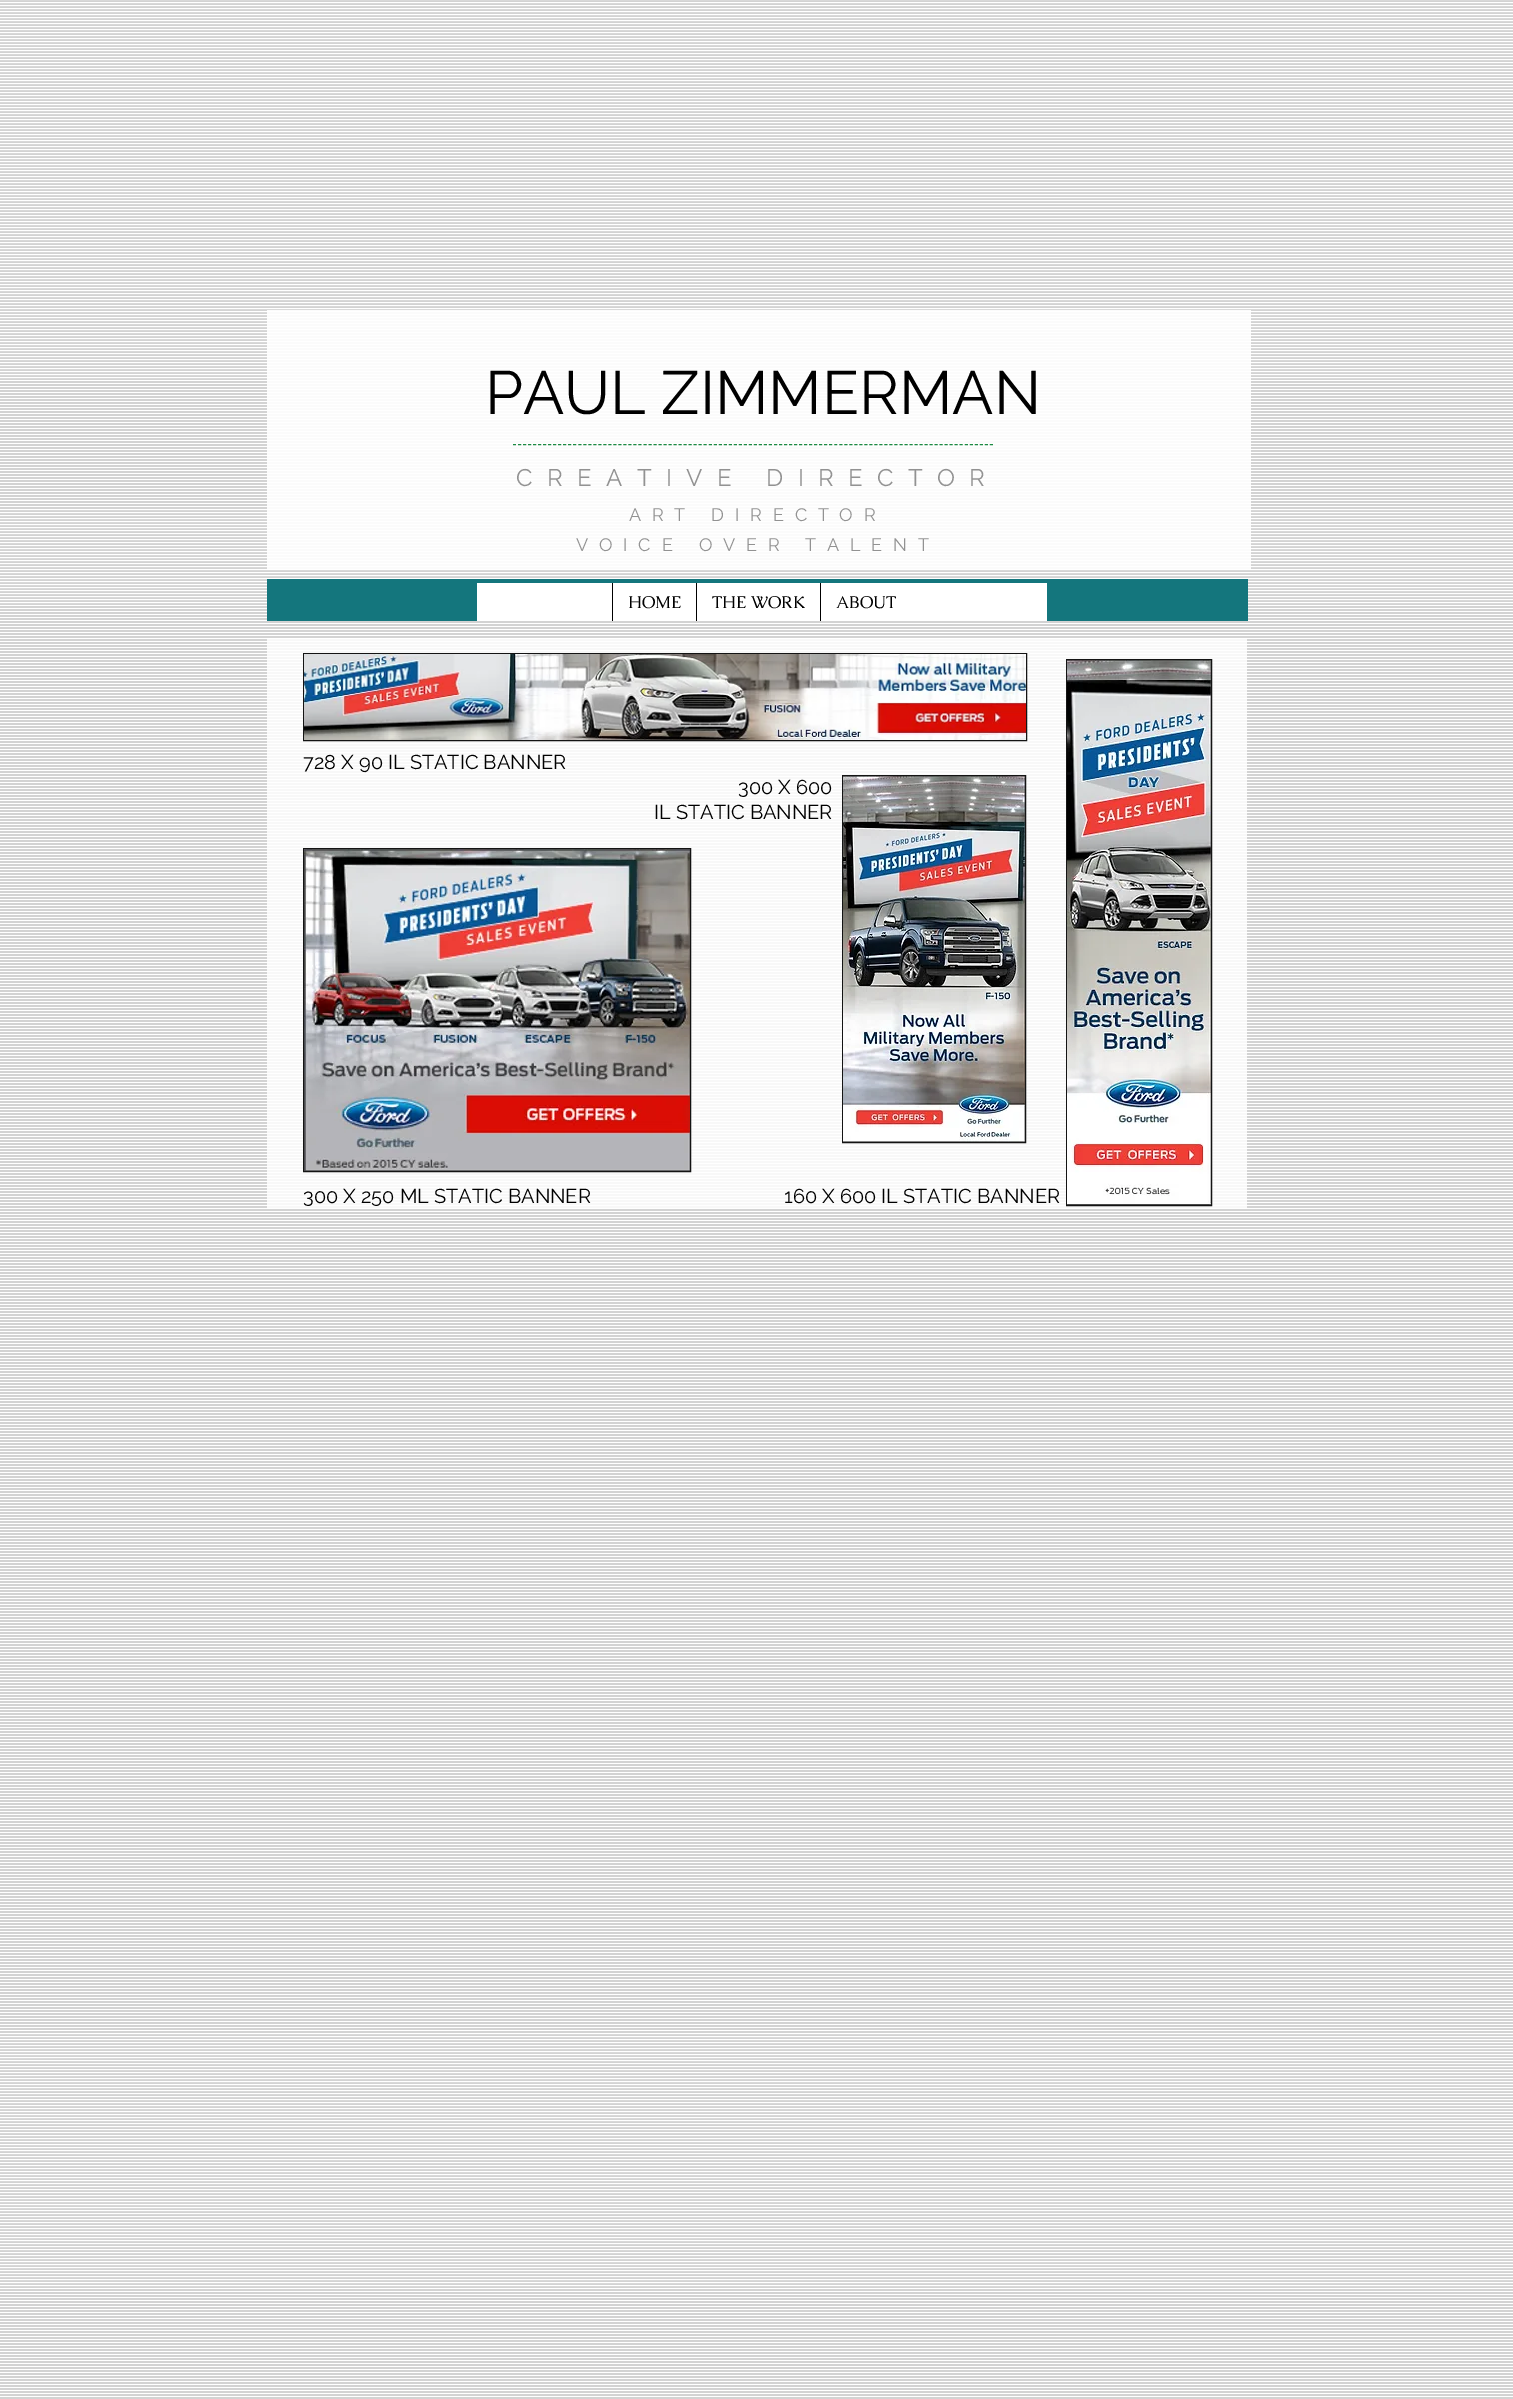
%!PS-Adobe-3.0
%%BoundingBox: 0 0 1513 2399
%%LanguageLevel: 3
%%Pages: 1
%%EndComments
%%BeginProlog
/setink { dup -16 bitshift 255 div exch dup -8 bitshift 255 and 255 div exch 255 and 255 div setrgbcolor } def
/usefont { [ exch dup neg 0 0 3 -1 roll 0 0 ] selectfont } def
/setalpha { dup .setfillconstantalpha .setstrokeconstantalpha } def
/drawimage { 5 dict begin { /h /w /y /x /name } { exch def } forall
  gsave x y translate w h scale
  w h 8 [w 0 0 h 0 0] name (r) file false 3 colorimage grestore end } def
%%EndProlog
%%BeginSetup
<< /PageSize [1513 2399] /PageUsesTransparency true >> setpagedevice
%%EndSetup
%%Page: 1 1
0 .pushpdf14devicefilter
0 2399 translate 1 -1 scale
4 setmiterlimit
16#FFFFFF setink
0 0 1513 2399 rectfill
(img1.raw) 0 0 1513 2399 drawimage
0.9 setalpha
267 310 984 259 rectfill
/Raleway-Regular 61 usefont
1 setalpha
16#000000 setink
485 414 moveto (PAUL ZIMMERMAN) show
16#1C8A43 setink
[3 2.02] 0 setdash
513 444.5 moveto 993 444.5 lineto stroke
/Raleway-Regular 24 usefont
16#929292 setink
516 486 moveto 14.4 0 (CREATIVE DIRECTOR) ashow
/Raleway-Regular 18 usefont
629 521 moveto 10.75 0 (ART DIRECTOR) ashow
576 551 moveto 10.75 0 (VOICE OVER TALENT) ashow
[
    [267 579 981 42 16#14767D]
    [477 583 570 38 16#FFFFFF]
    [612 583 1 38 16#000000]
] { aload pop setink rectfill } forall
/Caudex-Regular 17 usefont
628 608 moveto (HOME) show
696 583 1 38 rectfill
712 608 moveto (THE WORK) show
820 583 1 38 rectfill
836 608 moveto (ABOUT) show
0.84 setalpha
16#FFFFFF setink
267 639 980 569 rectfill
1 setalpha
16#141414 setink
[] 0 setdash
303.5 653.5 723 87 rectstroke
(img2.raw) 304 654 722 86 drawimage
1066.5 659.5 145 546 rectstroke
(img3.raw) 1067 660 144 545 drawimage
/Raleway-Regular 20 usefont
16#000000 setink
[
    [(728 X 90 IL STATIC BANNER) 303 769]
    [(300 X 600) 738 794]
    [(IL STATIC BANNER) 654 819]
] { aload pop moveto show } forall
16#141414 setink
842.5 775.5 183 367 rectstroke
(img4.raw) 843 776 182 366 drawimage
303.5 848.5 387 323 rectstroke
(img5.raw) 304 849 386 322 drawimage
16#000000 setink
303 1203 moveto (300 X 250 ML STATIC BANNER) show
784 1203 moveto (160 X 600 IL STATIC BANNER) show
.poppdf14devicefilter showpage
%%EOF
